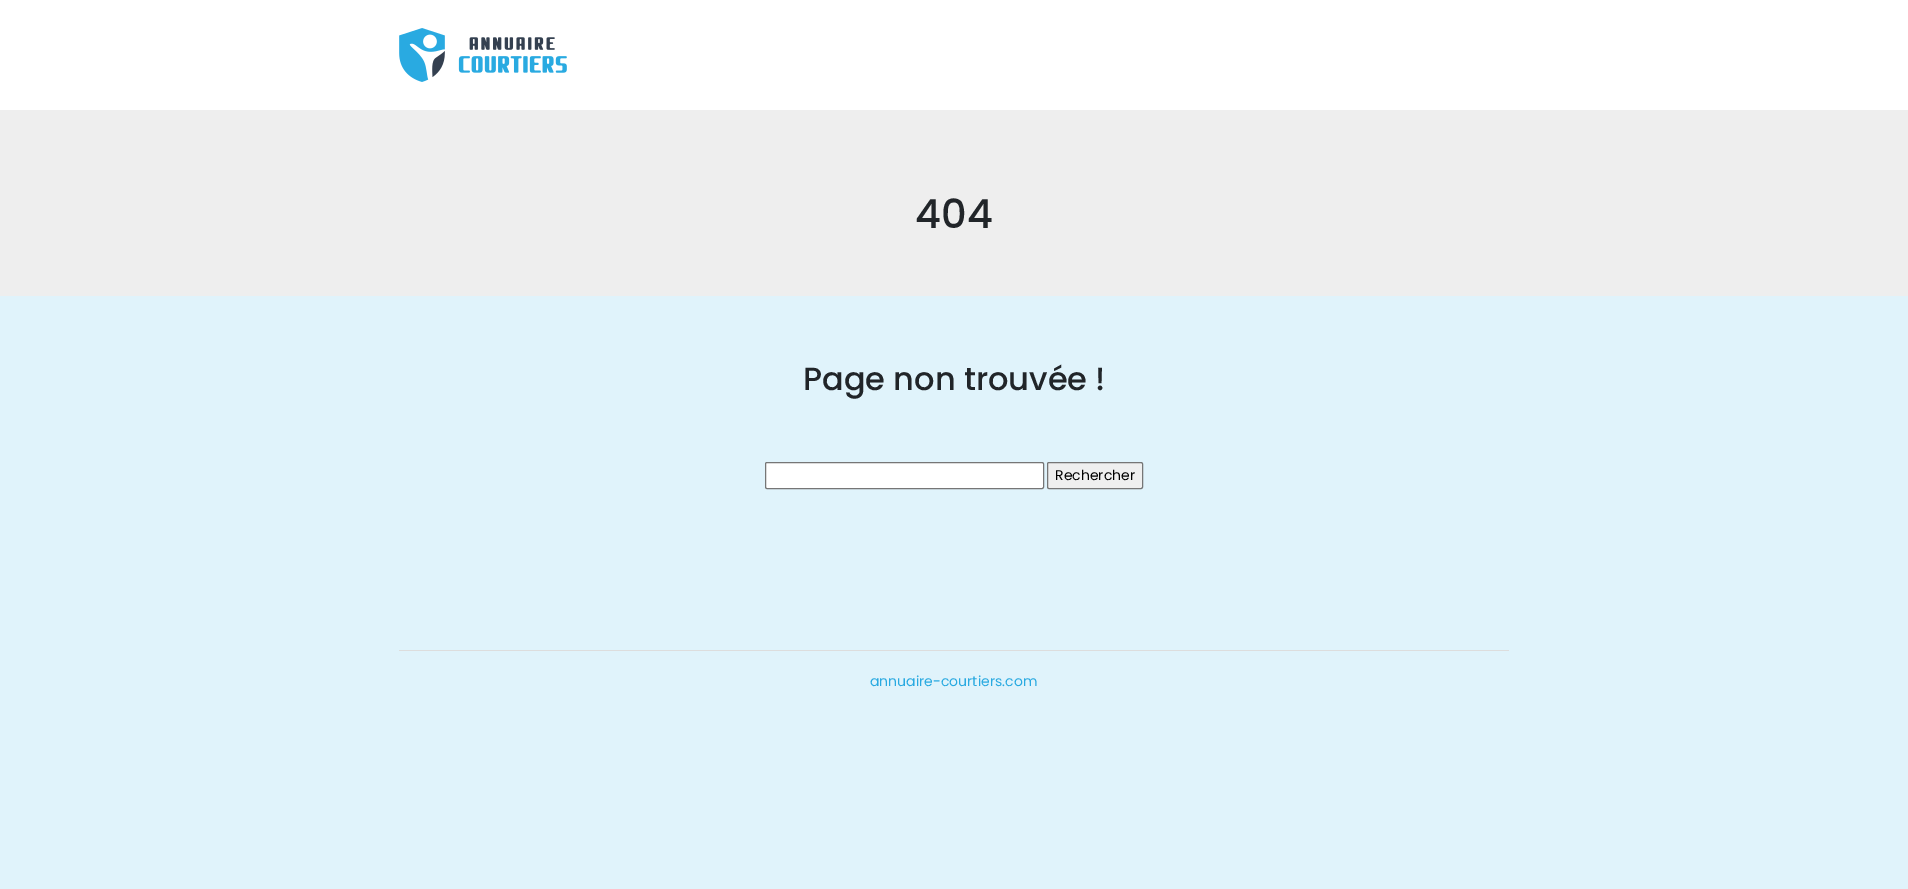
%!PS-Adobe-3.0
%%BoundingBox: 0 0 1908 889
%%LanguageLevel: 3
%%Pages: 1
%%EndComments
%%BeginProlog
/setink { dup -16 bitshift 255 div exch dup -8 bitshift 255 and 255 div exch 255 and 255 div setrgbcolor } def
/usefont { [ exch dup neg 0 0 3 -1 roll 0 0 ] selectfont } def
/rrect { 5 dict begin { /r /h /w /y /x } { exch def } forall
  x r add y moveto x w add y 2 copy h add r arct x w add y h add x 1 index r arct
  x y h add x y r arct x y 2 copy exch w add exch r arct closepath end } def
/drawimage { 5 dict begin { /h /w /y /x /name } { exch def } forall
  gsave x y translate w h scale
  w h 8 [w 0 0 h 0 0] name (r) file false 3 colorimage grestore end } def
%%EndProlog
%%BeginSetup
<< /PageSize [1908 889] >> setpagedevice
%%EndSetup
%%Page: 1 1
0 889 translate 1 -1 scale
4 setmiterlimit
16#E0F3FB setink
0 0 1908 889 rectfill
16#FFFFFF setink
0 0 1908 110 rectfill
(img1.raw) 399 28 168 54 drawimage
16#EEEEEE setink
0 110 1908 186 rectfill
/Poppins-Medium 40 usefont
16#212529 setink
915 228 moveto (404) show
/Poppins-Medium 32 usefont
803 390 moveto (Page non trouvée !) show
16#FFFFFF setink
765.5 462.5 278 26 1.5 rrect gsave fill grestore
16#767676 setink
stroke
16#EFEFEF setink
1047.5 462.5 95 26 1.5 rrect gsave fill grestore
16#767676 setink
stroke
/Poppins-Regular 14 usefont
16#000000 setink
1055 480 moveto (Rechercher) show
16#DDDDDD setink
399 650 1110 1 rectfill
16#29AAE1 setink
870 686 moveto (annuaire-courtiers.com) show
showpage
%%EOF
